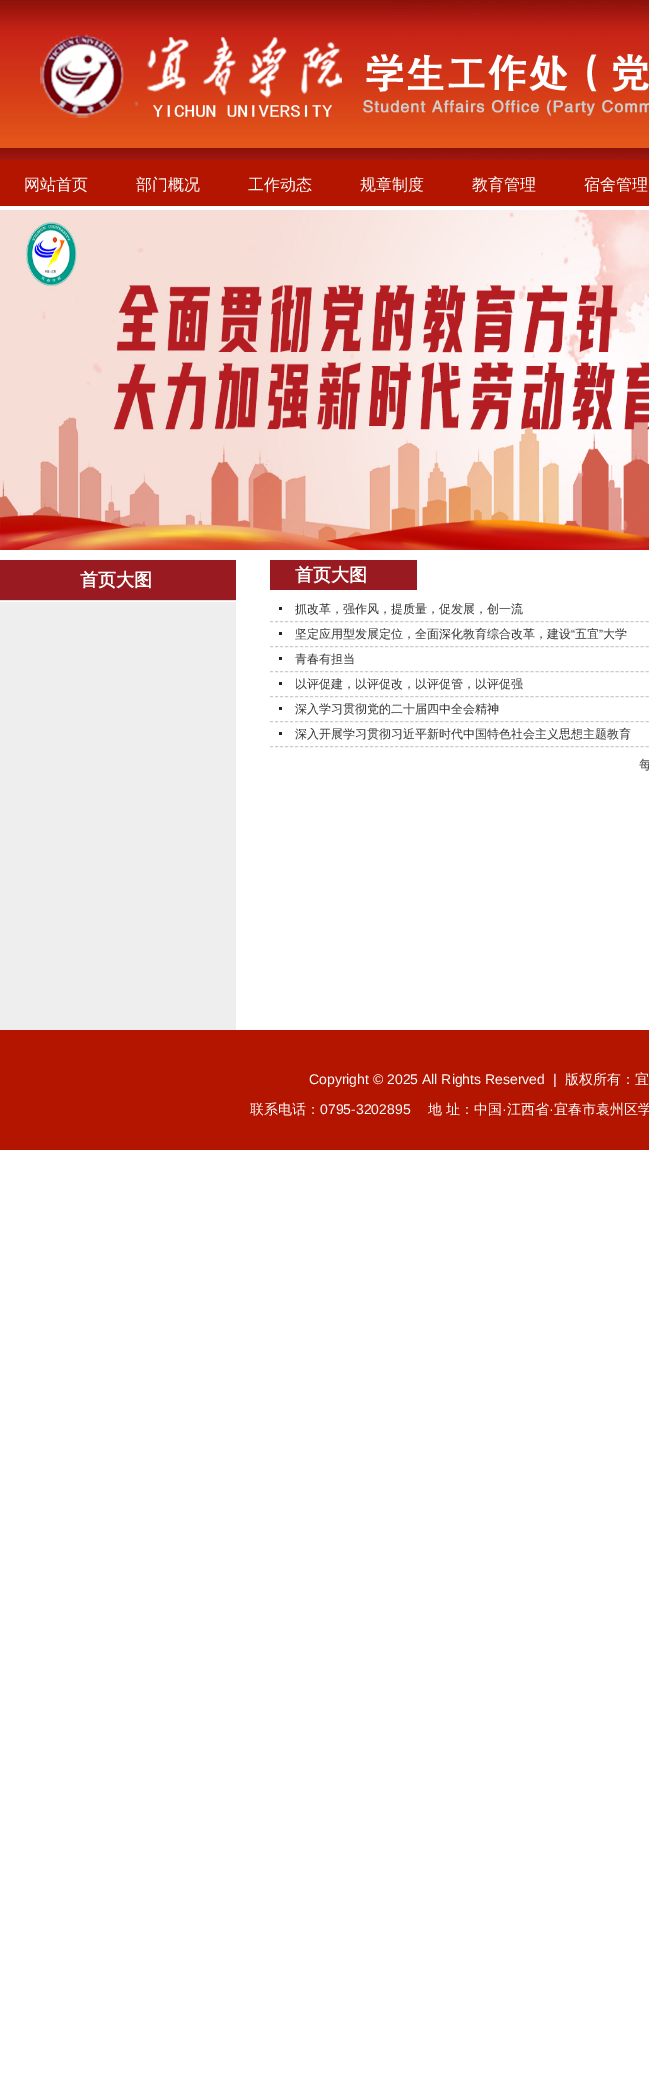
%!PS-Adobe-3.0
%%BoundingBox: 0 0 649 2081
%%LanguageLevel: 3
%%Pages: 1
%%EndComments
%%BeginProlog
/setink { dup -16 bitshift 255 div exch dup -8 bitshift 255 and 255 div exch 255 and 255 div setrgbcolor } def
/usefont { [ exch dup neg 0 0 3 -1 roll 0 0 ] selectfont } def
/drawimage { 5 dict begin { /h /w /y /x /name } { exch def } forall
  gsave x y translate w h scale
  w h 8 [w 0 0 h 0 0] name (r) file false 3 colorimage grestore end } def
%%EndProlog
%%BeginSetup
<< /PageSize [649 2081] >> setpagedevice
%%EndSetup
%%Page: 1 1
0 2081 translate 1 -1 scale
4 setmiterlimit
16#FFFFFF setink
0 0 649 2081 rectfill
(img1.raw) 0 0 649 160 drawimage
(img2.raw) 40 34 609 84 drawimage
16#B31501 setink
0 160 649 46 rectfill
/WenQuanYiZenHei-Medium 16 usefont
16#FFFFFF setink
[
    [(网站首页) 24 190]
    [(部门概况) 136 190]
    [(工作动态) 248 190]
    [(规章制度) 360 190]
    [(教育管理) 472 190]
    [(宿舍管理) 584 190]
] { aload pop moveto show } forall
(img3.raw) 0 210 649 340 drawimage
16#EEEEEE setink
0 602 236 428 rectfill
16#991B21 setink
0 560 236 40 rectfill
/WenQuanYiZenHei-Bold 18 usefont
16#FFFFFF setink
80 586 moveto (首页大图) show
16#DDDDDD setink
0 600 236 1 rectfill
16#991B21 setink
270 560 147 30 rectfill
16#FFFFFF setink
295 581 moveto (首页大图) show
16#CCCCCC setink
[3 2.01] 0 setdash
270 621.5 moveto 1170 621.5 lineto stroke
16#242628 setink
279 607 3 3 rectfill
/WenQuanYiZenHei-Medium 12 usefont
16#333333 setink
295 613 moveto (抓改革，强作风，提质量，促发展，创一流) show
16#CCCCCC setink
270 646.5 moveto 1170 646.5 lineto stroke
16#242628 setink
279 632 3 3 rectfill
16#333333 setink
295 638 moveto (坚定应用型发展定位，全面深化教育综合改革，建设) show
/LiberationSans-Regular 12 usefont
571 638 moveto (“) show
/WenQuanYiZenHei-Medium 12 usefont
575 638 moveto (五宜) show
/LiberationSans-Regular 12 usefont
599 638 moveto (”) show
/WenQuanYiZenHei-Medium 12 usefont
603 638 moveto (大学) show
16#CCCCCC setink
270 671.5 moveto 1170 671.5 lineto stroke
16#242628 setink
279 657 3 3 rectfill
16#333333 setink
295 663 moveto (青春有担当) show
16#CCCCCC setink
270 696.5 moveto 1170 696.5 lineto stroke
16#242628 setink
279 682 3 3 rectfill
16#333333 setink
295 688 moveto (以评促建，以评促改，以评促管，以评促强) show
16#CCCCCC setink
270 721.5 moveto 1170 721.5 lineto stroke
16#242628 setink
279 707 3 3 rectfill
16#333333 setink
295 713 moveto (深入学习贯彻党的二十届四中全会精神) show
16#CCCCCC setink
270 746.5 moveto 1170 746.5 lineto stroke
16#242628 setink
279 732 3 3 rectfill
16#333333 setink
295 738 moveto (深入开展学习贯彻习近平新时代中国特色社会主义思想主题教育) show
/WenQuanYiZenHei-Medium 13 usefont
16#494949 setink
639 769 moveto (每) show
16#B31501 setink
0 1030 649 120 rectfill
/LiberationSans-Regular 14 usefont
16#FFFFFF setink
309 1084 moveto (Copyright © 2025 All Rights Reserved  |) show
/WenQuanYiZenHei-Medium 14 usefont
565 1084 moveto (版权所有：宜) show
250 1114 moveto (联系电话：) show
/LiberationSans-Regular 14 usefont
320 1114 moveto (0795-3202895) show
/WenQuanYiZenHei-Medium 14 usefont
428 1114 moveto (地 址：中国) show
/LiberationSans-Regular 14 usefont
502 1114 moveto (·) show
/WenQuanYiZenHei-Medium 14 usefont
507 1114 moveto (江西省) show
/LiberationSans-Regular 14 usefont
549 1114 moveto (·) show
/WenQuanYiZenHei-Medium 14 usefont
554 1114 moveto (宜春市袁州区学) show
showpage
%%EOF
